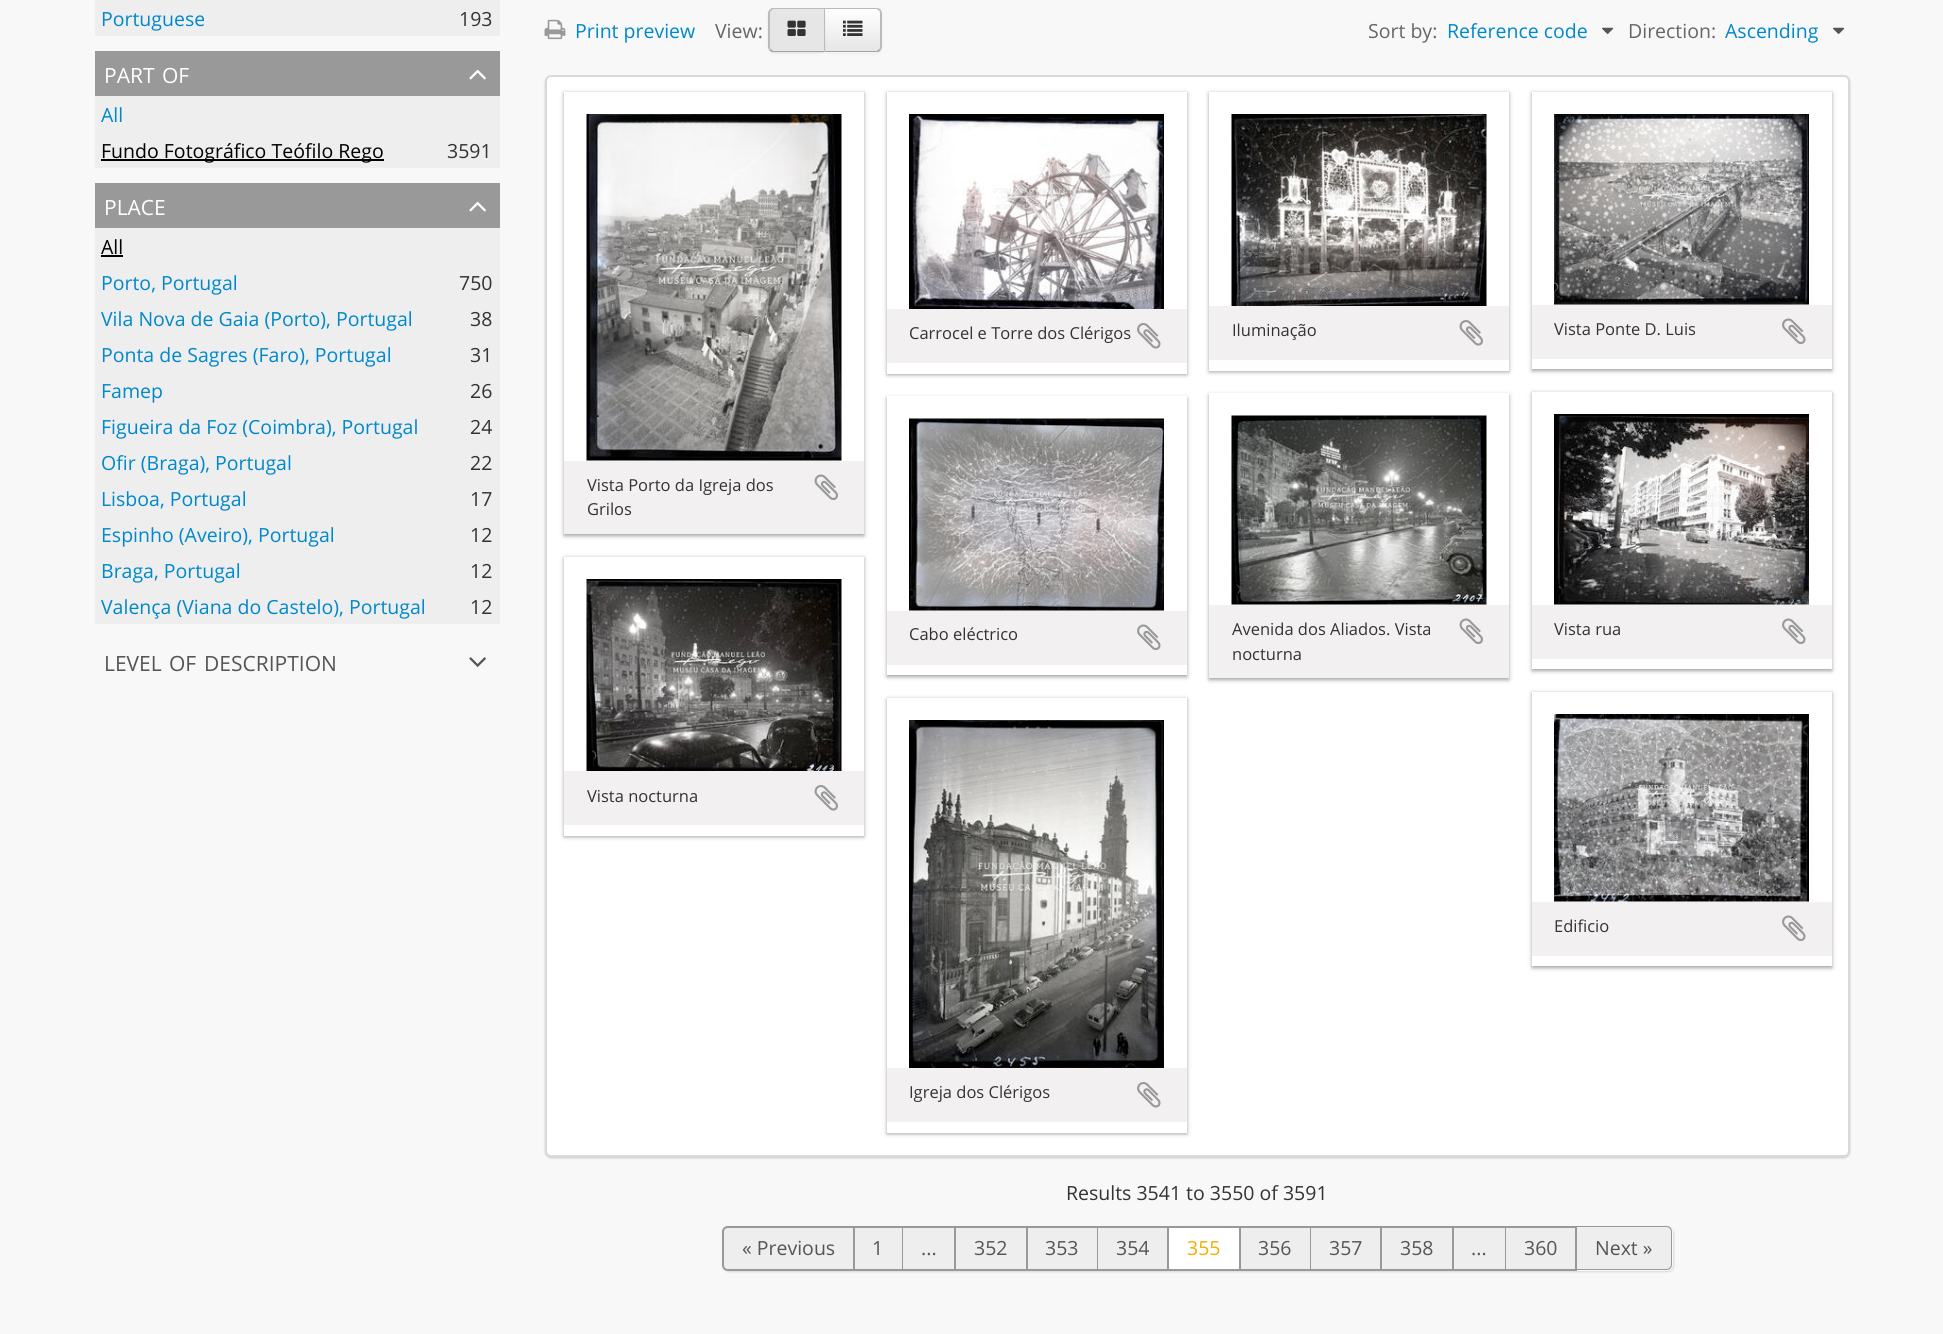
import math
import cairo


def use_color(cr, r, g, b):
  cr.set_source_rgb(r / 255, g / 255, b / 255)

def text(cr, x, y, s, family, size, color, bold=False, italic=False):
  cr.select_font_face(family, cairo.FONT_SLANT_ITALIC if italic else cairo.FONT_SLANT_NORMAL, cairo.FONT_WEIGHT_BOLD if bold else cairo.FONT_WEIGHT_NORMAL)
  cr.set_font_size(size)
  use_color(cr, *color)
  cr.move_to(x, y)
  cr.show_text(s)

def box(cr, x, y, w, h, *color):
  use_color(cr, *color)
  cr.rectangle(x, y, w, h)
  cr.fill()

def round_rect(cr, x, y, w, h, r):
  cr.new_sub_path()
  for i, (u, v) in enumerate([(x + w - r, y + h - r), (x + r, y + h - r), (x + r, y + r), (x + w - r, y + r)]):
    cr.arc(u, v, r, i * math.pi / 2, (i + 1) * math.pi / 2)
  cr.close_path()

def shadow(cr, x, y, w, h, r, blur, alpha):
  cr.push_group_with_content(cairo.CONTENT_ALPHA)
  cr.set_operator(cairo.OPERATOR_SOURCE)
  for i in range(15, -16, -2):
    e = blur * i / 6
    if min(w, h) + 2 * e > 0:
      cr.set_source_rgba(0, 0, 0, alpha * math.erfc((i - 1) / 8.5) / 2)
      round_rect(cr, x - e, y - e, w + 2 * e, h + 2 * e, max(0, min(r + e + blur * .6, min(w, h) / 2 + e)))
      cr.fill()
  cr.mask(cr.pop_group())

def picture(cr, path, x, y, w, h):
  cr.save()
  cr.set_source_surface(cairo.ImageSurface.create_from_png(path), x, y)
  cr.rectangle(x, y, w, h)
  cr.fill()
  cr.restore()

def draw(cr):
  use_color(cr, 248, 248, 248)
  cr.paint()
  box(cr, 95, 0, 405, 36, 238, 238, 238)
  box(cr, 95, 51, 405, 45, 153, 153, 153)
  picture(cr, "img_01.png", 469, 69, 17, 11)
  box(cr, 95, 96, 405, 72, 238, 238, 238)
  box(cr, 101, 159, 283, 2, 0, 0, 0)
  box(cr, 95, 183, 405, 45, 153, 153, 153)
  picture(cr, "img_01.png", 469, 201, 17, 11)
  box(cr, 95, 228, 405, 396, 238, 238, 238)
  box(cr, 101, 255, 22, 2, 0, 0, 0)
  picture(cr, "img_02.png", 469, 657, 17, 10)
  picture(cr, "img_03.png", 544, 19, 22, 21)
  use_color(cr, 0, 0, 0)
  shadow(cr, 824, 9, 58, 45, 6, 1.5, 0.05)
  use_color(cr, 245, 245, 245)
  cr.new_path()
  cr.move_to(824, 8)
  cr.line_to(876, 8)
  cr.curve_to(879.5, 8, 882, 10.5, 882, 14)
  cr.line_to(882, 47)
  cr.curve_to(882, 50.5, 879.5, 53, 876, 53)
  cr.line_to(824, 53)
  cr.close_path()
  cr.fill()
  cr.save()
  cr.new_path()
  cr.move_to(824, 8)
  cr.line_to(876, 8)
  cr.curve_to(879.5, 8, 882, 10.5, 882, 14)
  cr.line_to(882, 47)
  cr.curve_to(882, 50.5, 879.5, 53, 876, 53)
  cr.line_to(824, 53)
  cr.close_path()
  cr.clip()
  gradient = cairo.LinearGradient(853, 9, 853, 51)
  gradient.add_color_stop_rgba(0, 1, 1, 1, 1)
  gradient.add_color_stop_rgba(1, 0.902, 0.902, 0.902, 1)
  cr.set_source(gradient)
  cr.rectangle(825, 9, 57, 42)
  cr.fill()
  cr.restore()
  cr.set_source_rgba(1, 1, 1, 0.2)
  cr.new_path()
  cr.move_to(825, 10)
  cr.line_to(859, 10)
  cr.curve_to(881, 10, 880, 6, 880, 26)
  cr.line_to(880, 49)
  cr.curve_to(881, 48, 881, 47, 881, 46)
  cr.line_to(881, 14)
  cr.curve_to(881, 11, 879, 9, 876, 9)
  cr.line_to(825, 9)
  cr.close_path()
  cr.fill()
  use_color(cr, 187, 187, 187)
  cr.new_path()
  cr.move_to(824, 8)
  cr.line_to(825, 9)
  cr.line_to(877, 9)
  cr.line_to(879, 11)
  cr.line_to(880, 9)
  cr.curve_to(879, 8, 877, 8, 876, 8)
  cr.close_path()
  cr.fill()
  cr.new_path()
  cr.move_to(880, 9)
  cr.curve_to(881, 10, 882, 12, 882, 14)
  cr.line_to(882, 46)
  cr.curve_to(882, 48, 881, 50, 880, 51)
  cr.line_to(879, 49)
  cr.curve_to(880, 49, 880, 47, 880, 46)
  cr.line_to(880, 14)
  cr.curve_to(880, 13, 880, 11, 879, 11)
  cr.close_path()
  cr.fill()
  use_color(cr, 162, 162, 162)
  cr.new_path()
  cr.move_to(880, 51)
  cr.curve_to(879, 52, 877, 52, 876, 52)
  cr.line_to(824, 52)
  cr.line_to(825, 51)
  cr.line_to(877, 51)
  cr.line_to(879, 49)
  cr.close_path()
  cr.fill()
  use_color(cr, 0, 0, 0)
  shadow(cr, 768, 9, 57, 45, 6, 1.5, 0.05)
  use_color(cr, 230, 230, 230)
  cr.new_path()
  cr.move_to(774, 8)
  cr.line_to(825, 8)
  cr.line_to(825, 53)
  cr.line_to(774, 53)
  cr.curve_to(770.5, 53, 768, 50.5, 768, 47)
  cr.line_to(768, 14)
  cr.curve_to(768, 10.5, 770.5, 8, 774, 8)
  cr.close_path()
  cr.fill()
  use_color(cr, 187, 187, 187)
  cr.new_path()
  cr.move_to(774, 8)
  cr.curve_to(773, 8, 771, 8, 770, 9)
  cr.line_to(771, 11)
  cr.line_to(773, 9)
  cr.line_to(824, 9)
  cr.line_to(824, 8)
  cr.close_path()
  cr.move_to(825, 52)
  cr.line_to(825, 8)
  cr.line_to(824, 8)
  cr.line_to(824, 9)
  cr.line_to(824, 51)
  cr.close_path()
  cr.fill()
  use_color(cr, 162, 162, 162)
  cr.new_path()
  cr.move_to(824, 52)
  cr.line_to(774, 52)
  cr.curve_to(773, 52, 771, 52, 770, 51)
  cr.line_to(771, 49)
  cr.line_to(773, 51)
  cr.line_to(824, 51)
  cr.close_path()
  cr.fill()
  use_color(cr, 187, 187, 187)
  cr.new_path()
  cr.move_to(768, 14)
  cr.line_to(768, 46)
  cr.curve_to(768, 48, 769, 50, 770, 51)
  cr.line_to(771, 49)
  cr.curve_to(770, 49, 770, 47, 770, 46)
  cr.line_to(770, 14)
  cr.curve_to(770, 13, 770, 11, 771, 11)
  cr.line_to(770, 9)
  cr.curve_to(769, 10, 768, 12, 768, 14)
  cr.close_path()
  cr.fill()
  picture(cr, "img_04.png", 787, 20, 19, 16)
  picture(cr, "img_05.png", 843, 20, 20, 16)
  picture(cr, "img_06.png", 1602, 27, 12, 7)
  picture(cr, "img_06.png", 1833, 27, 12, 7)
  use_color(cr, 0, 0, 0)
  shadow(cr, 545, 77, 1305, 1081, 6, 1, 0.2)
  use_color(cr, 255, 255, 255)
  round_rect(cr, 546, 76, 1303, 1080, 5)
  cr.fill_preserve()
  use_color(cr, 217, 217, 217)
  cr.stroke()
  use_color(cr, 25, 25, 25)
  shadow(cr, 887, 93, 300, 282, 0, 2, 0.4)
  box(cr, 887, 92, 300, 282, 255, 255, 255)
  picture(cr, "img_07.png", 909, 114, 255, 195)
  box(cr, 887, 309, 300, 54, 242, 240, 240)
  picture(cr, "img_08.png", 1137, 323, 24, 26)
  use_color(cr, 25, 25, 25)
  shadow(cr, 1209, 93, 300, 279, 0, 2, 0.4)
  box(cr, 1209, 92, 300, 279, 255, 255, 255)
  picture(cr, "img_09.png", 1231, 114, 256, 192)
  box(cr, 1209, 306, 300, 54, 242, 240, 240)
  picture(cr, "img_10.png", 1459, 320, 24, 26)
  use_color(cr, 25, 25, 25)
  shadow(cr, 1532, 93, 300, 278, 0, 2, 0.4)
  box(cr, 1532, 92, 300, 277, 255, 255, 255)
  picture(cr, "img_11.png", 1554, 114, 255, 191)
  box(cr, 1532, 305, 300, 54, 242, 240, 240)
  picture(cr, "img_12.png", 1782, 318, 24, 26)
  cr.save()
  cr.set_fill_rule(cairo.FILL_RULE_EVEN_ODD)
  cr.new_path()
  cr.move_to(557, 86)
  cr.line_to(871, 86)
  cr.line_to(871, 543)
  cr.line_to(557, 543)
  cr.close_path()
  cr.move_to(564, 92)
  cr.line_to(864, 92)
  cr.line_to(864, 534)
  cr.line_to(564, 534)
  cr.close_path()
  cr.clip()
  use_color(cr, 25, 25, 25)
  shadow(cr, 564, 93, 300, 443, 0, 2, 0.4)
  cr.restore()
  picture(cr, "img_13.png", 586, 114, 256, 347)
  box(cr, 564, 461, 300, 73, 242, 240, 240)
  picture(cr, "img_14.png", 814, 474, 24, 27)
  use_color(cr, 25, 25, 25)
  shadow(cr, 887, 398, 300, 279, 0, 2, 0.4)
  box(cr, 887, 396, 300, 279, 255, 255, 255)
  picture(cr, "img_15.png", 909, 418, 255, 193)
  box(cr, 887, 611, 300, 54, 242, 240, 240)
  picture(cr, "img_12.png", 1137, 624, 24, 26)
  cr.save()
  cr.set_fill_rule(cairo.FILL_RULE_EVEN_ODD)
  cr.new_path()
  cr.move_to(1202, 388)
  cr.line_to(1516, 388)
  cr.line_to(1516, 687)
  cr.line_to(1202, 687)
  cr.close_path()
  cr.move_to(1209, 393)
  cr.line_to(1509, 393)
  cr.line_to(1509, 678)
  cr.line_to(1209, 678)
  cr.close_path()
  cr.clip()
  use_color(cr, 25, 25, 25)
  shadow(cr, 1209, 395, 300, 285, 0, 2, 0.4)
  cr.restore()
  picture(cr, "img_16.png", 1231, 415, 256, 190)
  box(cr, 1209, 605, 300, 73, 242, 240, 240)
  picture(cr, "img_14.png", 1459, 618, 24, 27)
  use_color(cr, 25, 25, 25)
  shadow(cr, 1532, 393, 300, 278, 0, 2, 0.4)
  box(cr, 1532, 392, 300, 277, 255, 255, 255)
  picture(cr, "img_17.png", 1554, 414, 255, 191)
  box(cr, 1532, 605, 300, 54, 242, 240, 240)
  picture(cr, "img_12.png", 1782, 618, 24, 26)
  use_color(cr, 25, 25, 25)
  shadow(cr, 564, 558, 300, 279, 0, 2, 0.4)
  box(cr, 564, 557, 300, 279, 255, 255, 255)
  picture(cr, "img_18.png", 586, 579, 256, 192)
  box(cr, 564, 771, 300, 54, 242, 240, 240)
  picture(cr, "img_10.png", 814, 785, 24, 26)
  use_color(cr, 25, 25, 25)
  shadow(cr, 1532, 693, 300, 275, 0, 2, 0.4)
  box(cr, 1532, 692, 300, 274, 255, 255, 255)
  picture(cr, "img_19.png", 1554, 714, 255, 188)
  box(cr, 1532, 902, 300, 54, 242, 240, 240)
  picture(cr, "img_12.png", 1782, 915, 24, 26)
  use_color(cr, 25, 25, 25)
  shadow(cr, 887, 699, 300, 435, 0, 2, 0.4)
  box(cr, 887, 698, 300, 435, 255, 255, 255)
  picture(cr, "img_20.png", 909, 720, 255, 348)
  box(cr, 887, 1068, 300, 54, 242, 240, 240)
  picture(cr, "img_08.png", 1137, 1082, 24, 26)
  cr.save()
  cr.set_fill_rule(cairo.FILL_RULE_EVEN_ODD)
  cr.new_path()
  cr.move_to(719, 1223)
  cr.line_to(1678, 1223)
  cr.line_to(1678, 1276)
  cr.line_to(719, 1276)
  cr.close_path()
  cr.move_to(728, 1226)
  cr.line_to(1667, 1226)
  cr.curve_to(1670.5, 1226, 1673, 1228.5, 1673, 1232)
  cr.line_to(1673, 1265)
  cr.curve_to(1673, 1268.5, 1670.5, 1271, 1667, 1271)
  cr.line_to(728, 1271)
  cr.curve_to(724.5, 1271, 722, 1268.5, 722, 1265)
  cr.line_to(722, 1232)
  cr.curve_to(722, 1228.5, 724.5, 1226, 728, 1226)
  cr.close_path()
  cr.clip()
  use_color(cr, 25, 25, 25)
  shadow(cr, 723, 1227, 951, 45, 6, 1, 0.15)
  cr.restore()
  use_color(cr, 238, 238, 238)
  cr.new_path()
  cr.move_to(728, 1227)
  cr.line_to(854, 1227)
  cr.line_to(854, 1270)
  cr.line_to(728, 1270)
  cr.curve_to(725, 1270, 723, 1268, 723, 1265)
  cr.line_to(723, 1232)
  cr.curve_to(723, 1229, 725, 1227, 728, 1227)
  cr.close_path()
  cr.fill_preserve()
  use_color(cr, 153, 153, 153)
  cr.stroke()
  box(cr, 855, 1228, 47, 41, 238, 238, 238)
  box(cr, 855, 1226, 722, 2, 153, 153, 153)
  box(cr, 902, 1226, 1, 45, 153, 153, 153)
  box(cr, 855, 1269, 48, 2, 153, 153, 153)
  box(cr, 903, 1228, 51, 41, 238, 238, 238)
  box(cr, 954, 1226, 2, 45, 153, 153, 153)
  box(cr, 903, 1269, 53, 2, 153, 153, 153)
  box(cr, 956, 1228, 70, 41, 238, 238, 238)
  box(cr, 1026, 1226, 2, 45, 153, 153, 153)
  box(cr, 956, 1269, 72, 2, 153, 153, 153)
  box(cr, 1028, 1228, 69, 41, 238, 238, 238)
  box(cr, 1097, 1226, 1, 45, 153, 153, 153)
  box(cr, 1028, 1269, 70, 2, 153, 153, 153)
  box(cr, 1098, 1228, 69, 41, 238, 238, 238)
  box(cr, 1167, 1226, 2, 45, 153, 153, 153)
  box(cr, 1098, 1269, 71, 2, 153, 153, 153)
  box(cr, 1169, 1228, 70, 41, 255, 255, 255)
  box(cr, 1239, 1226, 2, 45, 153, 153, 153)
  box(cr, 1169, 1269, 72, 2, 153, 153, 153)
  box(cr, 1241, 1228, 69, 41, 238, 238, 238)
  box(cr, 1310, 1226, 1, 45, 153, 153, 153)
  box(cr, 1241, 1269, 70, 2, 153, 153, 153)
  box(cr, 1311, 1228, 69, 41, 238, 238, 238)
  box(cr, 1380, 1226, 2, 45, 153, 153, 153)
  box(cr, 1311, 1269, 71, 2, 153, 153, 153)
  box(cr, 1382, 1228, 70, 41, 238, 238, 238)
  box(cr, 1452, 1226, 2, 45, 153, 153, 153)
  box(cr, 1382, 1269, 72, 2, 153, 153, 153)
  box(cr, 1454, 1228, 51, 41, 238, 238, 238)
  box(cr, 1505, 1226, 1, 45, 153, 153, 153)
  box(cr, 1454, 1269, 52, 2, 153, 153, 153)
  box(cr, 1506, 1228, 69, 41, 238, 238, 238)
  box(cr, 1575, 1226, 2, 45, 153, 153, 153)
  box(cr, 1506, 1269, 71, 2, 153, 153, 153)
  use_color(cr, 238, 238, 238)
  cr.new_path()
  cr.move_to(1577, 1227)
  cr.line_to(1666, 1227)
  cr.curve_to(1669, 1227, 1671, 1229, 1671, 1232)
  cr.line_to(1671, 1264)
  cr.curve_to(1671, 1267, 1669, 1269, 1666, 1269)
  cr.line_to(1577, 1269)
  cr.close_path()
  cr.fill()
  use_color(cr, 153, 153, 153)
  cr.set_fill_rule(cairo.FILL_RULE_EVEN_ODD)
  cr.new_path()
  cr.move_to(1576, 1226)
  cr.line_to(1666, 1226)
  cr.curve_to(1670, 1226, 1672, 1228, 1672, 1232)
  cr.line_to(1672, 1264)
  cr.curve_to(1672, 1268, 1670, 1270, 1666, 1270)
  cr.line_to(1576, 1270)
  cr.close_path()
  cr.move_to(1576, 1227)
  cr.line_to(1666, 1227)
  cr.curve_to(1669, 1227, 1671, 1229, 1671, 1232)
  cr.line_to(1671, 1264)
  cr.curve_to(1671, 1267, 1669, 1269, 1666, 1269)
  cr.line_to(1576, 1269)
  cr.close_path()
  cr.fill()
  text(cr, 101, 26, "Portuguese", "Open Sans", 19.5, (0, 136, 204))
  text(cr, 459, 26, "193", "Open Sans", 19.5, (51, 51, 51))
  text(cr, 104, 83, "PART", "Open Sans", 21, (255, 255, 255))
  text(cr, 162, 83, "OF", "Open Sans", 21, (255, 255, 255))
  text(cr, 101, 122, "All", "Open Sans", 19.5, (0, 136, 204))
  text(cr, 101, 158, "Fundo Fotográfico Teófilo Rego", "Open Sans", 19.5, (0, 0, 0))
  text(cr, 447, 158, "3591", "Open Sans", 19.5, (51, 51, 51))
  text(cr, 104, 215, "PLACE", "Open Sans", 21, (255, 255, 255))
  text(cr, 101, 254, "All", "Open Sans", 19.5, (0, 0, 0))
  text(cr, 101, 290, "Porto, Portugal", "Open Sans", 19.5, (0, 136, 204))
  text(cr, 459, 290, "750", "Open Sans", 19.5, (51, 51, 51))
  text(cr, 101, 326, "Vila Nova de Gaia (Porto), Portugal", "Open Sans", 19.5, (0, 136, 204))
  text(cr, 470, 326, "38", "Open Sans", 19.5, (51, 51, 51))
  text(cr, 101, 362, "Ponta de Sagres (Faro), Portugal", "Open Sans", 19.5, (0, 136, 204))
  text(cr, 470, 362, "31", "Open Sans", 19.5, (51, 51, 51))
  text(cr, 101, 398, "Famep", "Open Sans", 19.5, (0, 136, 204))
  text(cr, 470, 398, "26", "Open Sans", 19.5, (51, 51, 51))
  text(cr, 101, 434, "Figueira da Foz (Coimbra), Portugal", "Open Sans", 19.5, (0, 136, 204))
  text(cr, 470, 434, "24", "Open Sans", 19.5, (51, 51, 51))
  text(cr, 101, 470, "Ofir (Braga), Portugal", "Open Sans", 19.5, (0, 136, 204))
  text(cr, 470, 470, "22", "Open Sans", 19.5, (51, 51, 51))
  text(cr, 101, 506, "Lisboa, Portugal", "Open Sans", 19.5, (0, 136, 204))
  text(cr, 470, 506, "17", "Open Sans", 19.5, (51, 51, 51))
  text(cr, 101, 542, "Espinho (Aveiro), Portugal", "Open Sans", 19.5, (0, 136, 204))
  text(cr, 470, 542, "12", "Open Sans", 19.5, (51, 51, 51))
  text(cr, 101, 578, "Braga, Portugal", "Open Sans", 19.5, (0, 136, 204))
  text(cr, 470, 578, "12", "Open Sans", 19.5, (51, 51, 51))
  text(cr, 101, 614, "Valença (Viana do Castelo), Portugal", "Open Sans", 19.5, (0, 136, 204))
  text(cr, 470, 614, "12", "Open Sans", 19.5, (51, 51, 51))
  text(cr, 104, 671, "LEVEL", "Open Sans", 21, (85, 85, 85))
  text(cr, 169, 671, "OF", "Open Sans", 21, (85, 85, 85))
  text(cr, 204, 671, "DESCRIPTION", "Open Sans", 21, (85, 85, 85))
  text(cr, 575, 38, "Print preview", "Open Sans", 19.5, (0, 136, 204))
  text(cr, 715, 38, "View:", "Open Sans", 19.5, (102, 102, 102))
  text(cr, 1368, 38, "Sort by:", "Open Sans", 19.5, (102, 102, 102))
  text(cr, 1447, 38, "Reference code", "Open Sans", 19.5, (0, 136, 204))
  text(cr, 1628, 38, "Direction:", "Open Sans", 19.5, (102, 102, 102))
  text(cr, 1725, 38, "Ascending", "Open Sans", 19.5, (0, 136, 204))
  text(cr, 909, 339, "Carrocel e Torre dos Clérigos", "Open Sans", 16.5, (51, 51, 51))
  text(cr, 1232, 336, "Iluminação", "Open Sans", 16.5, (51, 51, 51))
  text(cr, 1554, 335, "Vista Ponte D. Luis", "Open Sans", 16.5, (51, 51, 51))
  text(cr, 587, 491, "Vista Porto da Igreja dos", "Open Sans", 16.5, (51, 51, 51))
  text(cr, 587, 515, "Grilos", "Open Sans", 16.5, (51, 51, 51))
  text(cr, 909, 640, "Cabo eléctrico", "Open Sans", 16.5, (51, 51, 51))
  text(cr, 1232, 635, "Avenida dos Aliados. Vista", "Open Sans", 16.5, (51, 51, 51))
  text(cr, 1232, 660, "nocturna", "Open Sans", 16.5, (51, 51, 51))
  text(cr, 1554, 635, "Vista rua", "Open Sans", 16.5, (51, 51, 51))
  text(cr, 587, 802, "Vista nocturna", "Open Sans", 16.5, (51, 51, 51))
  text(cr, 1554, 932, "Edificio", "Open Sans", 16.5, (51, 51, 51))
  text(cr, 909, 1098, "Igreja dos Clérigos", "Open Sans", 16.5, (51, 51, 51))
  text(cr, 1066, 1200, "Results 3541 to 3550 of 3591", "Open Sans", 19.5, (51, 51, 51))
  text(cr, 742, 1255, "« Previous", "Open Sans", 19.5, (85, 85, 85))
  text(cr, 872, 1255, "1", "Open Sans", 19.5, (85, 85, 85))
  text(cr, 921, 1255, "...", "Open Sans", 19.5, (85, 85, 85))
  text(cr, 974, 1255, "352", "Open Sans", 19.5, (85, 85, 85))
  text(cr, 1045, 1255, "353", "Open Sans", 19.5, (85, 85, 85))
  text(cr, 1116, 1255, "354", "Open Sans", 19.5, (85, 85, 85))
  text(cr, 1187, 1255, "355", "Open Sans", 19.5, (246, 172, 0))
  text(cr, 1258, 1255, "356", "Open Sans", 19.5, (85, 85, 85))
  text(cr, 1329, 1255, "357", "Open Sans", 19.5, (85, 85, 85))
  text(cr, 1400, 1255, "358", "Open Sans", 19.5, (85, 85, 85))
  text(cr, 1471, 1255, "...", "Open Sans", 19.5, (85, 85, 85))
  text(cr, 1524, 1255, "360", "Open Sans", 19.5, (85, 85, 85))
  text(cr, 1595, 1255, "Next »", "Open Sans", 19.5, (85, 85, 85))


surface = cairo.ImageSurface(cairo.FORMAT_RGB24, 1943, 1334)
cr = cairo.Context(surface)
options = cairo.FontOptions()
options.set_hint_metrics(cairo.HINT_METRICS_OFF)
options.set_hint_style(cairo.HINT_STYLE_NONE)
cr.set_font_options(options)
cr.set_miter_limit(4)
draw(cr)
surface.write_to_png("out.png")
